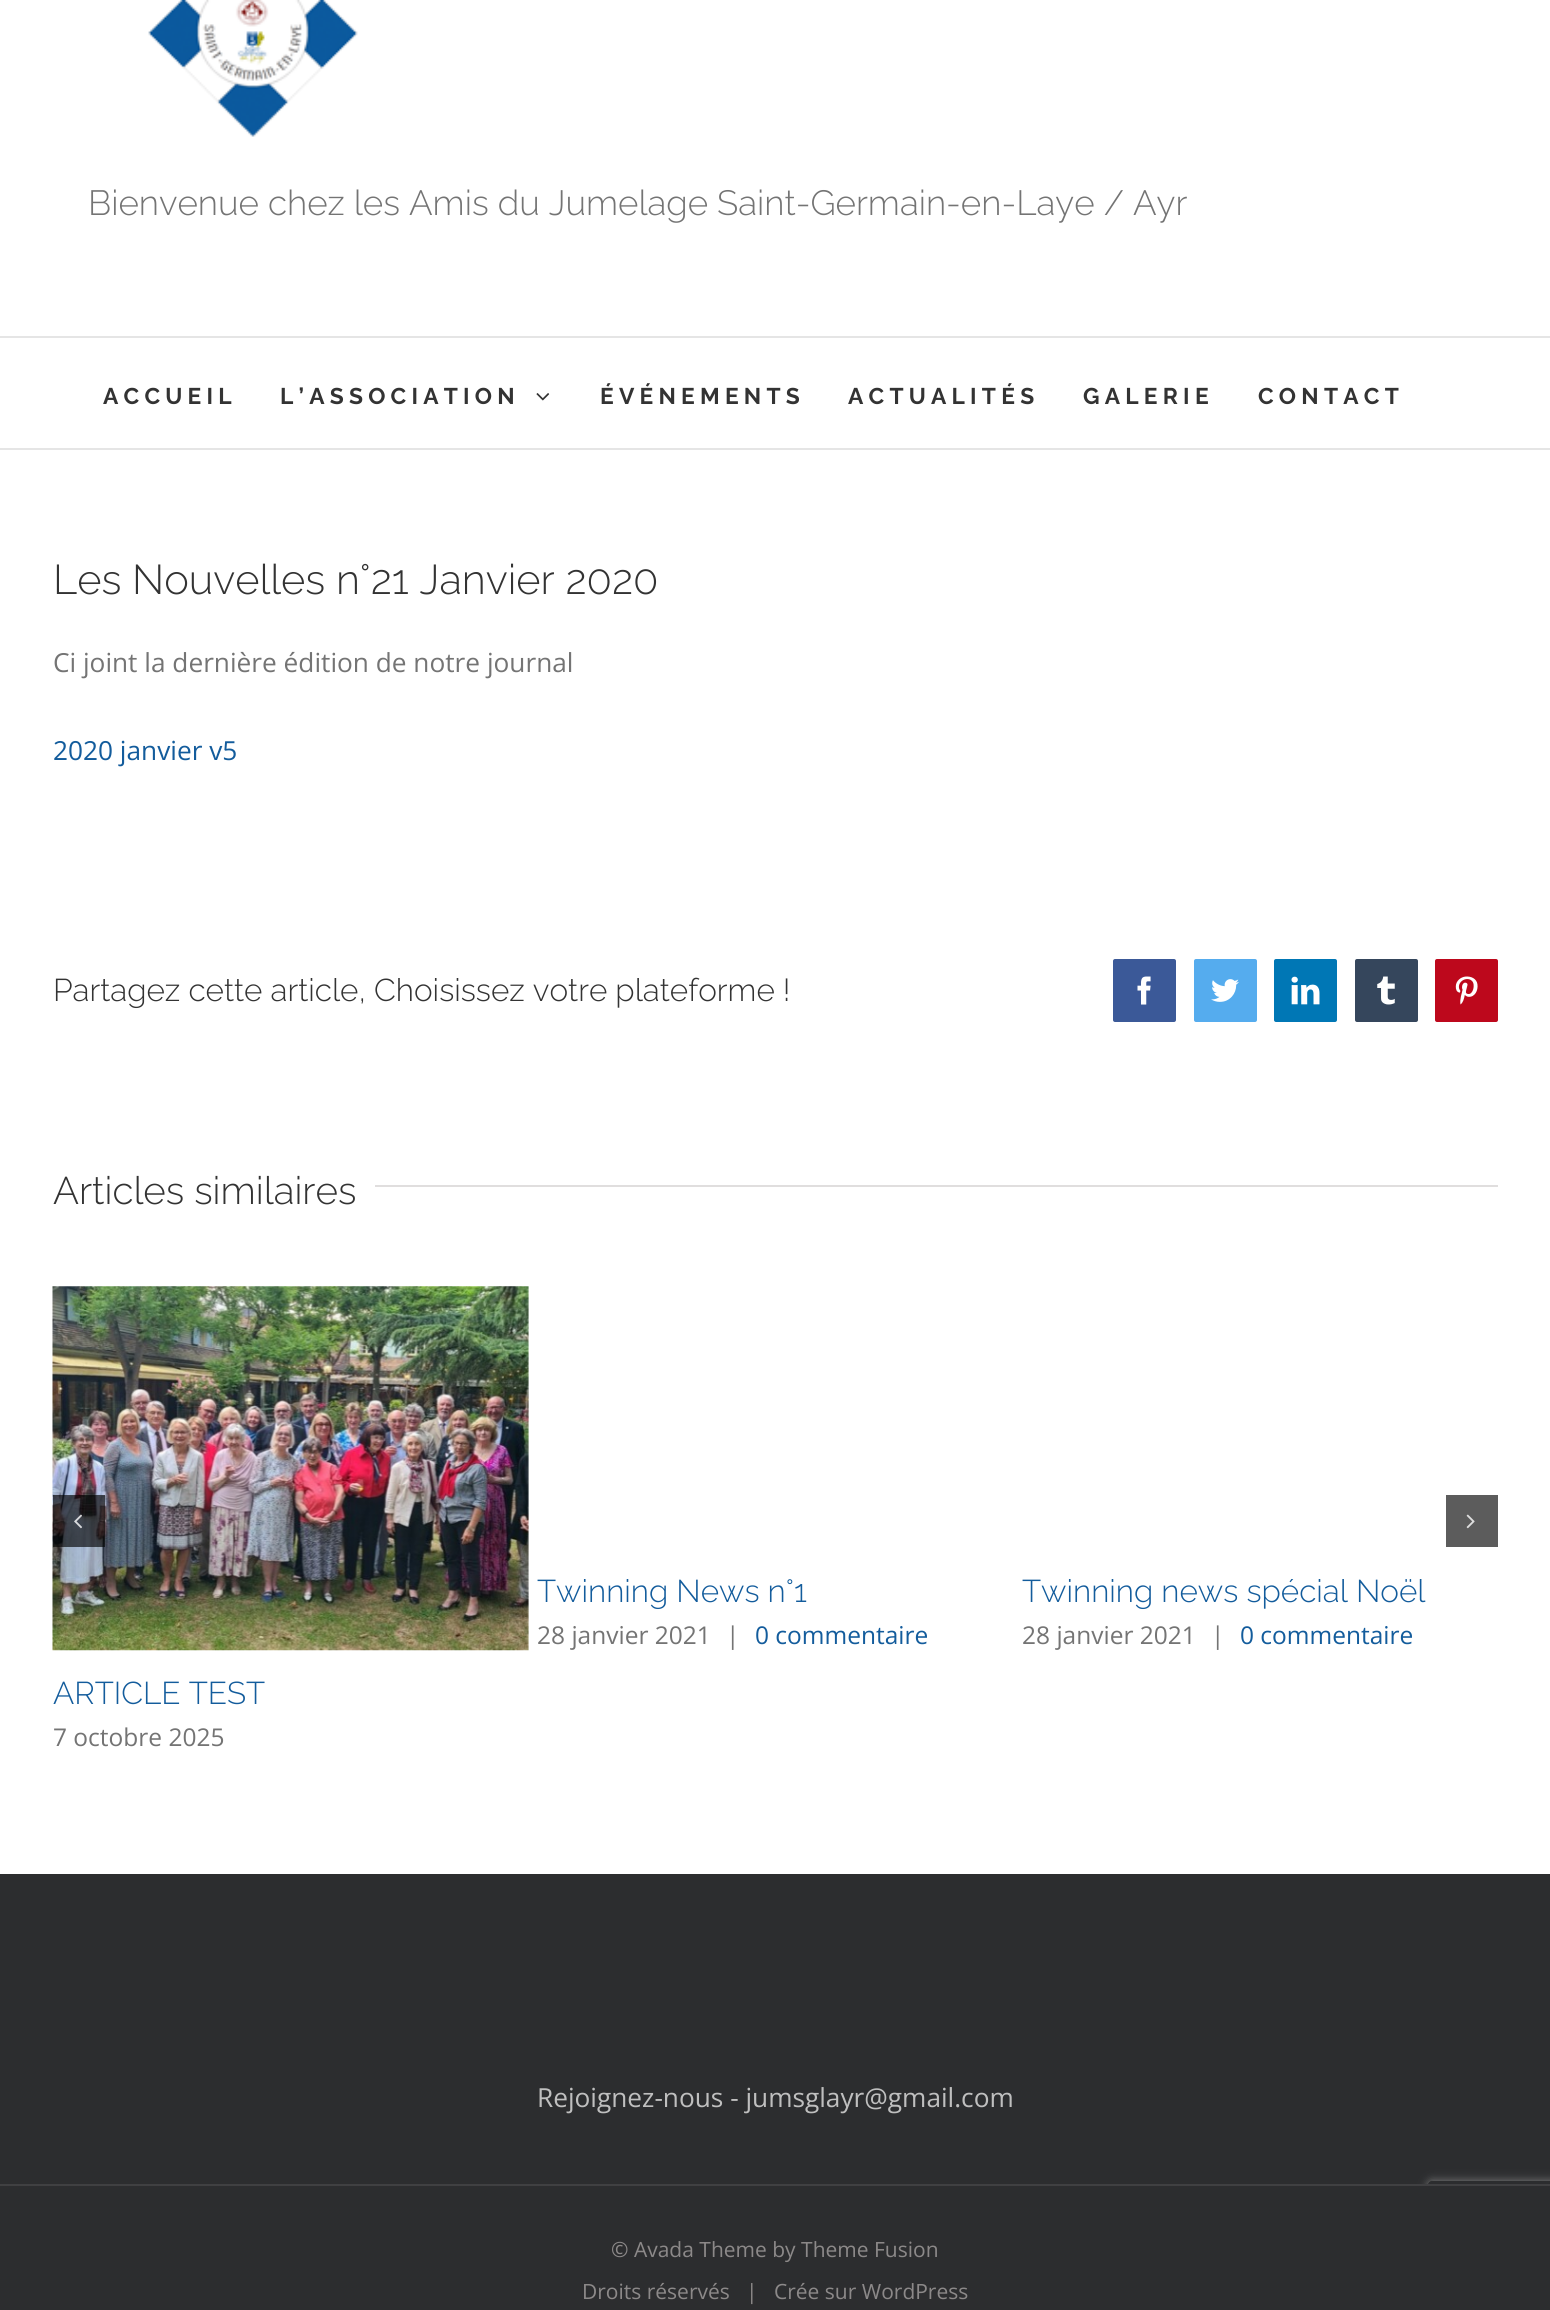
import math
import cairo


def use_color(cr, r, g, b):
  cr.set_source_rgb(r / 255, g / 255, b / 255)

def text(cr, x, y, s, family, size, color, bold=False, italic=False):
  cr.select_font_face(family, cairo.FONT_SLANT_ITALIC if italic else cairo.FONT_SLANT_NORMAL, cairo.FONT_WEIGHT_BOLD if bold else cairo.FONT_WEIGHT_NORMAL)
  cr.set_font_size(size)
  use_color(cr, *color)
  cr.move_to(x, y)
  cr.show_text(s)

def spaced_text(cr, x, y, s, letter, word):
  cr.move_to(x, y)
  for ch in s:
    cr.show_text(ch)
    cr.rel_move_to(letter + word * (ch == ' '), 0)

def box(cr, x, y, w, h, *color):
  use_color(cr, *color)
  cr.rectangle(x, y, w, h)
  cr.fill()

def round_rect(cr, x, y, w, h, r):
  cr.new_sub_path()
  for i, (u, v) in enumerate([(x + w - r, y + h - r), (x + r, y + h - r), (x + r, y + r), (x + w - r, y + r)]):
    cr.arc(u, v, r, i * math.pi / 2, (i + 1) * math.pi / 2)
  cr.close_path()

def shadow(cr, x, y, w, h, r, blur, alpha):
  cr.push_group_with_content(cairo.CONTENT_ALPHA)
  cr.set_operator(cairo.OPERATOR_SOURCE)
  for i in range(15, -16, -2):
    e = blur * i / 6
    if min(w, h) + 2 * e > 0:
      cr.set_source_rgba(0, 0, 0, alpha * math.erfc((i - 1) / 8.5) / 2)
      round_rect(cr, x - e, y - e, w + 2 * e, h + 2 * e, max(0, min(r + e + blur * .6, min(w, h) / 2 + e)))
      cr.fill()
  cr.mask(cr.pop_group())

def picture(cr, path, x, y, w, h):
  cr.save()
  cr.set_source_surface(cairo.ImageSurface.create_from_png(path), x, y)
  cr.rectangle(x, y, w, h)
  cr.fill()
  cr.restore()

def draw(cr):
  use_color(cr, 255, 255, 255)
  cr.paint()
  box(cr, 0, 336, 1550, 2, 229, 229, 229)
  picture(cr, "img_01.png", 148, 0, 210, 137)
  box(cr, 0, 448, 1550, 2, 229, 229, 229)
  picture(cr, "img_02.png", 536, 393, 14, 8)
  use_color(cr, 59, 89, 152)
  round_rect(cr, 1114, 960, 61, 61, 1)
  cr.fill_preserve()
  cr.stroke()
  picture(cr, "img_03.png", 1137, 976, 14, 29)
  use_color(cr, 85, 172, 238)
  round_rect(cr, 1195, 960, 61, 61, 1)
  cr.fill_preserve()
  cr.stroke()
  picture(cr, "img_04.png", 1211, 979, 28, 23)
  use_color(cr, 0, 119, 181)
  round_rect(cr, 1275, 960, 61, 61, 1)
  cr.fill_preserve()
  cr.stroke()
  picture(cr, "img_05.png", 1291, 976, 29, 29)
  use_color(cr, 53, 70, 92)
  round_rect(cr, 1356, 960, 61, 61, 1)
  cr.fill_preserve()
  cr.stroke()
  picture(cr, "img_06.png", 1377, 976, 18, 29)
  use_color(cr, 189, 8, 28)
  round_rect(cr, 1436, 960, 61, 61, 1)
  cr.fill_preserve()
  cr.stroke()
  picture(cr, "img_07.png", 1455, 976, 23, 29)
  box(cr, 375, 1185, 1123, 2, 224, 222, 222)
  picture(cr, "img_10.png", 52, 1286, 477, 365)
  cr.set_source_rgba(0, 0, 0, 0.64)
  cr.rectangle(53, 1495, 52, 52)
  cr.fill()
  picture(cr, "img_08.png", 74, 1514, 8, 15)
  box(cr, 1446, 1495, 52, 52, 92, 92, 92)
  picture(cr, "img_09.png", 1466, 1514, 9, 15)
  box(cr, 0, 1874, 1550, 310, 44, 45, 47)
  cr.save()
  cr.set_fill_rule(cairo.FILL_RULE_EVEN_ODD)
  cr.new_path()
  cr.move_to(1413, 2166)
  cr.line_to(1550, 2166)
  cr.line_to(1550, 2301)
  cr.line_to(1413, 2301)
  cr.close_path()
  cr.move_to(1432, 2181)
  cr.line_to(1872, 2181)
  cr.curve_to(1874, 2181, 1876, 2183, 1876, 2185)
  cr.line_to(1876, 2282)
  cr.curve_to(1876, 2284, 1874, 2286, 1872, 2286)
  cr.line_to(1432, 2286)
  cr.curve_to(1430, 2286, 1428, 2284, 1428, 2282)
  cr.line_to(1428, 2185)
  cr.curve_to(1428, 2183, 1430, 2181, 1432, 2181)
  cr.close_path()
  cr.clip()
  use_color(cr, 128, 128, 128)
  shadow(cr, 1428, 2181, 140, 105, 4, 4.5, 1)
  cr.restore()
  box(cr, 0, 2186, 1550, 124, 44, 45, 47)
  box(cr, 0, 2184, 1550, 2, 64, 64, 66)
  text(cr, 88, 215, "Bienvenue chez les Amis du Jumelage Saint-Germain-en-Laye / Ayr", "Raleway Light", 35, (116, 116, 116))
  cr.select_font_face("Raleway", cairo.FONT_SLANT_NORMAL, cairo.FONT_WEIGHT_BOLD)
  cr.set_font_size(22.75)
  use_color(cr, 51, 51, 51)
  spaced_text(cr, 103, 404, "ACCUEIL", 5.25, 0)
  spaced_text(cr, 280, 404, "L’ASSOCIATION", 5.25, 0)
  spaced_text(cr, 600, 404, "ÉVÉNEMENTS", 5.25, 0)
  spaced_text(cr, 848, 404, "ACTUALITÉS", 5.25, 0)
  spaced_text(cr, 1083, 404, "GALERIE", 5.25, 0)
  spaced_text(cr, 1258, 404, "CONTACT", 5.25, 0)
  text(cr, 53, 594, "Les Nouvelles n°21 Janvier 2020", "Raleway Light", 41.6, (51, 51, 51))
  text(cr, 53, 672, "Ci joint la dernière édition de notre journal", "Open Sans", 26.25, (116, 116, 116))
  text(cr, 53, 760, "2020 janvier v5", "Open Sans", 26.25, (19, 92, 156))
  text(cr, 53, 1001, "Partagez cette article, Choisissez votre plateforme !", "Raleway Light", 31.5, (51, 51, 51))
  text(cr, 53, 1204, "Articles similaires", "Raleway Light", 38.5, (51, 51, 51))
  text(cr, 537, 1602, "Twinning News n°1", "Raleway Light", 31.5, (19, 92, 156))
  text(cr, 537, 1644, "28 janvier 2021", "Open Sans", 24.5, (116, 116, 116))
  text(cr, 726, 1644, "|", "Open Sans", 24.5, (116, 116, 116))
  text(cr, 755, 1644, "0 commentaire", "Open Sans", 24.5, (19, 92, 156))
  text(cr, 1022, 1602, "Twinning news spécial Noël", "Raleway Light", 31.5, (19, 92, 156))
  text(cr, 1022, 1644, "28 janvier 2021", "Open Sans", 24.5, (116, 116, 116))
  text(cr, 1211, 1644, "|", "Open Sans", 24.5, (116, 116, 116))
  text(cr, 1240, 1644, "0 commentaire", "Open Sans", 24.5, (19, 92, 156))
  text(cr, 53, 1704, "ARTICLE TEST", "Raleway Light", 31.5, (19, 92, 156))
  text(cr, 53, 1746, "7 octobre 2025", "Open Sans", 24.5, (116, 116, 116))
  text(cr, 537, 2107, "Rejoignez-nous - jumsglayr@gmail.com", "Open Sans", 26.25, (191, 191, 191))
  text(cr, 611, 2257, "© Avada Theme by Theme Fusion", "Open Sans", 21, (140, 137, 137))
  text(cr, 582, 2299, "Droits réservés   |   Crée sur WordPress", "Open Sans", 21, (140, 137, 137))


surface = cairo.ImageSurface(cairo.FORMAT_RGB24, 1550, 2310)
cr = cairo.Context(surface)
options = cairo.FontOptions()
options.set_hint_metrics(cairo.HINT_METRICS_OFF)
options.set_hint_style(cairo.HINT_STYLE_NONE)
cr.set_font_options(options)
cr.set_miter_limit(4)
draw(cr)
surface.write_to_png("out.png")
